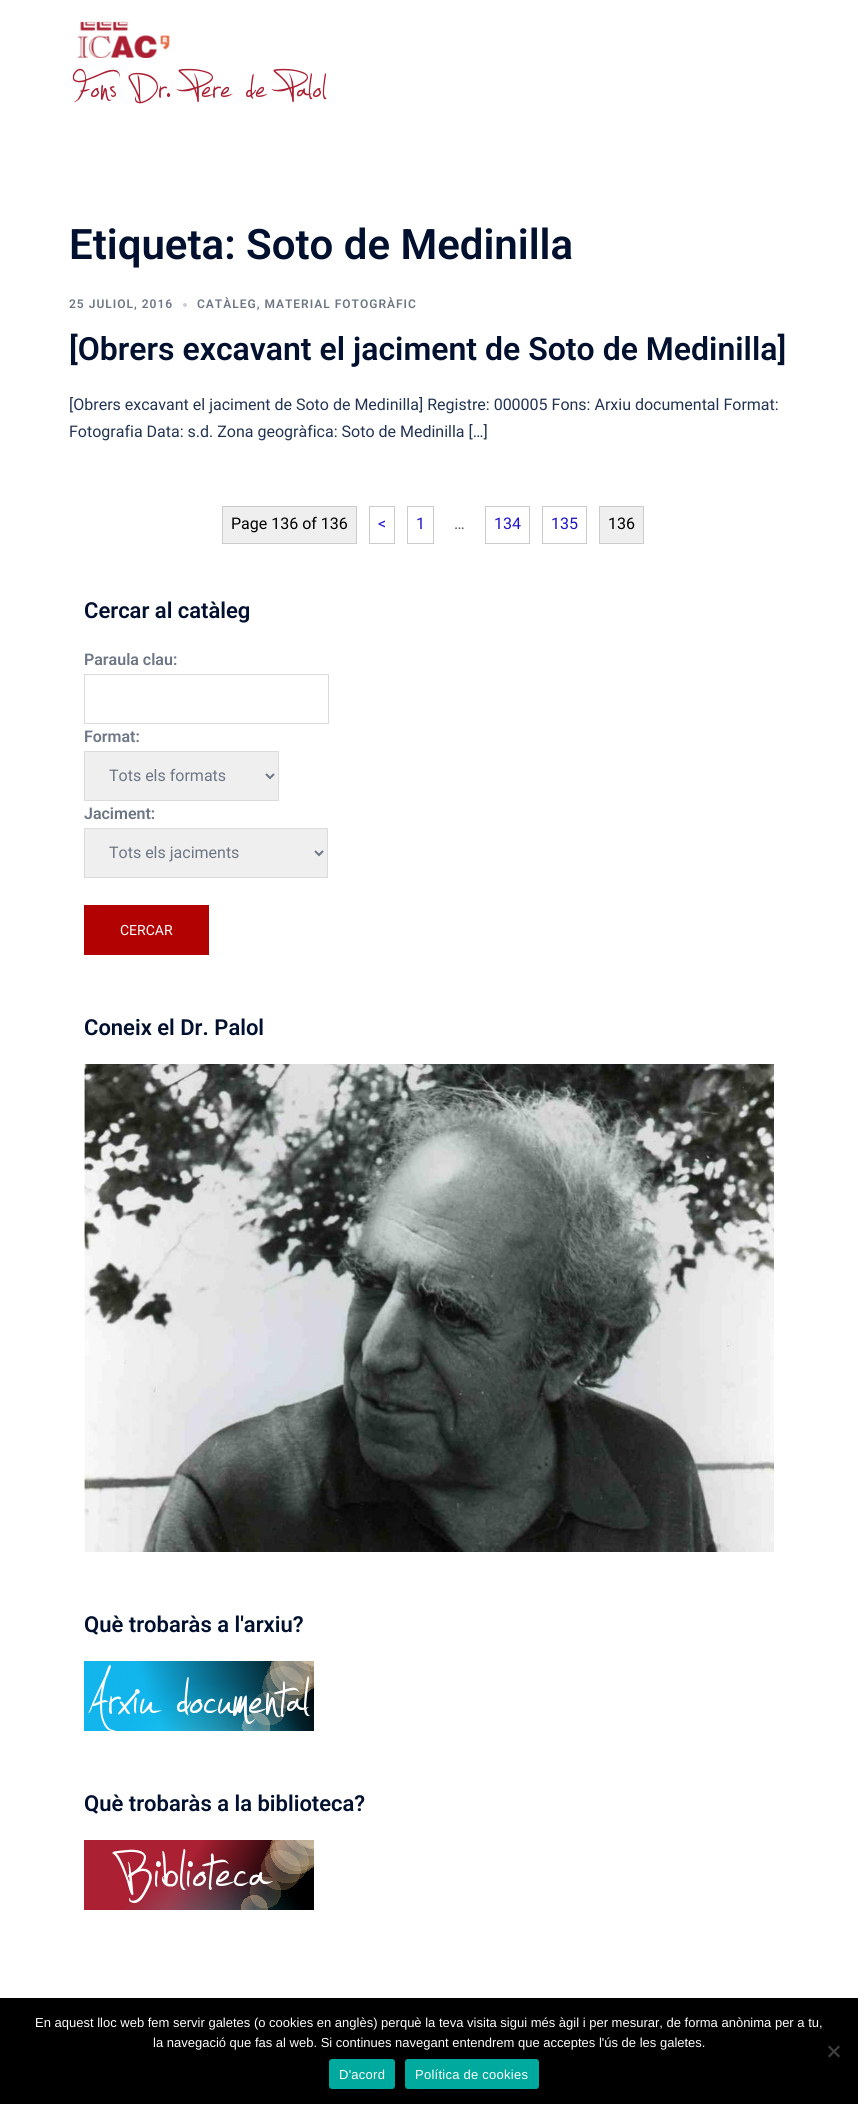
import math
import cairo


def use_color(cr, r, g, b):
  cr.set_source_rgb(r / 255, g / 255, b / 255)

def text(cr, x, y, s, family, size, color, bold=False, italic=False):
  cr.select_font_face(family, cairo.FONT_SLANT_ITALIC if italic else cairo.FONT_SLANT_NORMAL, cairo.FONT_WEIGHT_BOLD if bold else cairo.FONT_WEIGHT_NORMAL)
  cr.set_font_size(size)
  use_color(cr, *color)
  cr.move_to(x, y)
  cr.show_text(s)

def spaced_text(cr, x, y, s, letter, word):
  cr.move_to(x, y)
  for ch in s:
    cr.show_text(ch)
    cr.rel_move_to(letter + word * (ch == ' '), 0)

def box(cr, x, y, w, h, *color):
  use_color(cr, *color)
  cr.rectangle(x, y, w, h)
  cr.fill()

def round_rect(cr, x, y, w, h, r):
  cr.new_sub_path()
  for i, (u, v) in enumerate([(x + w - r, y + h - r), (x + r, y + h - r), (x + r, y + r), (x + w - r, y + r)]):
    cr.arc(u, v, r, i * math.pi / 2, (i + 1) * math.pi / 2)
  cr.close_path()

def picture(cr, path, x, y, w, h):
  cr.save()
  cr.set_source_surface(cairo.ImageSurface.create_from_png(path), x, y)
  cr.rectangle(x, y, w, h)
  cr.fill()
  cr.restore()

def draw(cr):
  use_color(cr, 255, 255, 255)
  cr.paint()
  picture(cr, "img_01.png", 72, 21, 255, 83)
  use_color(cr, 204, 207, 213)
  cr.arc(185, 305, 2, 0, 2 * math.pi)
  cr.fill()
  use_color(cr, 239, 239, 239)
  cr.rectangle(222.5, 506.5, 134, 37)
  cr.fill_preserve()
  use_color(cr, 204, 204, 204)
  cr.set_line_width(1)
  cr.stroke()
  cr.rectangle(369.5, 506.5, 25, 37)
  cr.stroke()
  cr.rectangle(407.5, 506.5, 26, 37)
  cr.stroke()
  cr.rectangle(485.5, 506.5, 44, 37)
  cr.stroke()
  cr.rectangle(542.5, 506.5, 44, 37)
  cr.stroke()
  use_color(cr, 239, 239, 239)
  cr.rectangle(599.5, 506.5, 44, 37)
  cr.fill_preserve()
  use_color(cr, 204, 204, 204)
  cr.stroke()
  cr.rectangle(84.5, 674.5, 244, 49)
  use_color(cr, 219, 219, 219)
  cr.stroke()
  use_color(cr, 239, 239, 239)
  cr.rectangle(84.5, 751.5, 194, 49)
  cr.fill_preserve()
  use_color(cr, 219, 219, 219)
  cr.stroke()
  cr.new_path()
  cr.move_to(266, 774)
  cr.line_to(270, 778)
  cr.line_to(274, 774)
  use_color(cr, 109, 118, 133)
  cr.set_line_width(2)
  cr.stroke()
  use_color(cr, 239, 239, 239)
  cr.rectangle(84.5, 828.5, 243, 49)
  cr.fill_preserve()
  use_color(cr, 219, 219, 219)
  cr.set_line_width(1)
  cr.stroke()
  cr.new_path()
  cr.move_to(315, 851)
  cr.line_to(319, 855)
  cr.line_to(323, 851)
  use_color(cr, 109, 118, 133)
  cr.set_line_width(2)
  cr.stroke()
  box(cr, 84, 905, 125, 50, 178, 2, 2)
  picture(cr, "img_02.png", 84, 1064, 690, 488)
  picture(cr, "img_03.png", 84, 1661, 230, 70)
  picture(cr, "img_04.png", 84, 1840, 230, 70)
  box(cr, 0, 1998, 858, 106, 0, 0, 0)
  use_color(cr, 64, 64, 64)
  cr.new_path()
  cr.move_to(838.5, 2045.5)
  cr.line_to(840, 2047)
  cr.line_to(829.5, 2057.5)
  cr.line_to(828, 2056)
  cr.close_path()
  cr.fill()
  cr.new_path()
  cr.move_to(828, 2047)
  cr.line_to(829.5, 2045.5)
  cr.line_to(840, 2056)
  cr.line_to(838.5, 2057.5)
  cr.close_path()
  cr.fill()
  use_color(cr, 0, 169, 157)
  round_rect(cr, 329, 2059, 66, 30, 3)
  cr.fill()
  round_rect(cr, 405, 2059, 134, 30, 3)
  cr.fill()
  text(cr, 69, 259, "Etiqueta: Soto de Medinilla", "Roboto SemiBold", 42, (0, 16, 46))
  cr.set_font_size(12)
  use_color(cr, 109, 118, 133)
  spaced_text(cr, 69, 308, "25 JULIOL, 2016", 1, 0)
  spaced_text(cr, 197, 308, "CATÀLEG, MATERIAL FOTOGRÀFIC", 1, 0)
  text(cr, 69, 360, "[Obrers excavant el jaciment de Soto de Medinilla]", "Roboto SemiBold", 32, (0, 16, 46))
  text(cr, 69, 410, "[Obrers excavant el jaciment de Soto de Medinilla] Registre: 000005 Fons: Arxiu documental Format:", "Roboto", 16, (35, 52, 82))
  text(cr, 69, 437, "Fotografia Data: s.d. Zona geogràfica: Soto de Medinilla […]", "Roboto", 16, (35, 52, 82))
  text(cr, 231, 529, "Page 136 of 136", "Roboto", 16, (0, 0, 0))
  text(cr, 378, 529, "<", "Roboto", 16, (30, 20, 202))
  text(cr, 416, 529, "1", "Roboto", 16, (30, 20, 202))
  text(cr, 494, 529, "134", "Roboto", 16, (30, 20, 202))
  text(cr, 551, 529, "135", "Roboto", 16, (30, 20, 202))
  text(cr, 608, 529, "136", "Roboto", 16, (0, 0, 0))
  text(cr, 454, 529, "…", "Roboto", 16, (94, 94, 94))
  text(cr, 84, 618, "Cercar al catàleg", "Roboto SemiBold", 22, (0, 16, 46))
  text(cr, 84, 665, "Paraula clau:", "Roboto SemiBold", 16, (109, 118, 133))
  text(cr, 84, 742, "Format:", "Roboto SemiBold", 16, (109, 118, 133))
  text(cr, 109, 781, "Tots els formats", "Roboto", 16, (109, 118, 133))
  text(cr, 84, 819, "Jaciment:", "Roboto SemiBold", 16, (109, 118, 133))
  text(cr, 109, 858, "Tots els jaciments", "Roboto", 16, (109, 118, 133))
  text(cr, 120, 935, "CERCAR", "Roboto", 14, (255, 255, 255))
  text(cr, 84, 1035, "Coneix el Dr. Palol", "Roboto SemiBold", 22, (0, 16, 46))
  text(cr, 84, 1632, "Què trobaràs a l'arxiu?", "Roboto SemiBold", 22, (0, 16, 46))
  text(cr, 84, 1811, "Què trobaràs a la biblioteca?", "Roboto SemiBold", 22, (0, 16, 46))
  text(cr, 35, 2027, "En aquest lloc web fem servir galetes (o cookies en anglès) perquè la teva visita sigui més àgil i per mesurar, de forma anònima per a tu,", "Liberation Sans", 13, (255, 255, 255))
  text(cr, 153, 2047, "la navegació que fas al web. Si continues navegant entendrem que acceptes l'ús de les galetes.", "Liberation Sans", 13, (255, 255, 255))
  spaced_text(cr, 339, 2079, "D'acord", 0.25, 0)
  spaced_text(cr, 415, 2079, "Política de cookies", 0.25, 0)


surface = cairo.ImageSurface(cairo.FORMAT_RGB24, 858, 2104)
cr = cairo.Context(surface)
options = cairo.FontOptions()
options.set_hint_metrics(cairo.HINT_METRICS_OFF)
options.set_hint_style(cairo.HINT_STYLE_NONE)
cr.set_font_options(options)
cr.set_miter_limit(4)
draw(cr)
surface.write_to_png("out.png")
